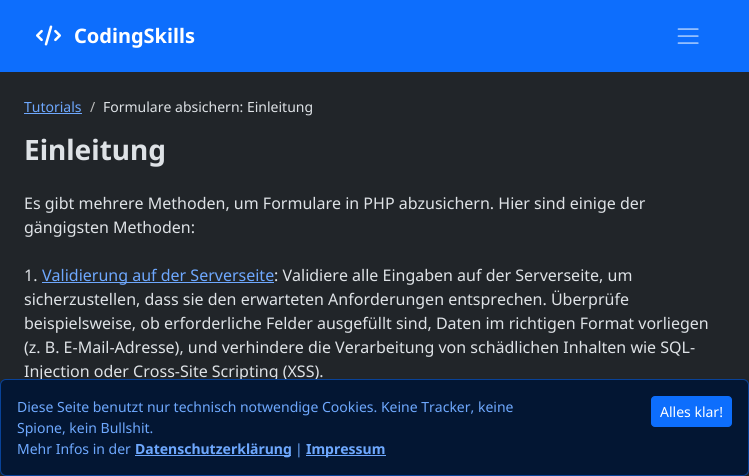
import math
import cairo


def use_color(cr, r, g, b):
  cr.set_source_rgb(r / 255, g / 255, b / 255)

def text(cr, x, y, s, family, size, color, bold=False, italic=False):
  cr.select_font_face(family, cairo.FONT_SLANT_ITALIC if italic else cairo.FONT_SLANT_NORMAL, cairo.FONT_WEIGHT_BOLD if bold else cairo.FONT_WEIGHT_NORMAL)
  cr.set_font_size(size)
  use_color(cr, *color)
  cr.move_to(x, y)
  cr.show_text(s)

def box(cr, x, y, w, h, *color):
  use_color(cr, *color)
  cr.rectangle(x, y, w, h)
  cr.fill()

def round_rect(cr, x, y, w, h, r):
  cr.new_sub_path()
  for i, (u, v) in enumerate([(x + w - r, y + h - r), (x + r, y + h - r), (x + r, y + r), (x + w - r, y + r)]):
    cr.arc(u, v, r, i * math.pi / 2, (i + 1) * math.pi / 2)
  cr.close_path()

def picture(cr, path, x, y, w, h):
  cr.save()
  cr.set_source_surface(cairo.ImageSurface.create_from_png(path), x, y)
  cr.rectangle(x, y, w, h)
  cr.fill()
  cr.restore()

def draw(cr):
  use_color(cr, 33, 37, 41)
  cr.paint()
  box(cr, 0, 0, 749, 72, 13, 110, 253)
  picture(cr, "img_01.png", 36, 25, 25, 21)
  picture(cr, "img_02.png", 677, 28, 22, 16)
  box(cr, 24, 113, 58, 1, 110, 168, 254)
  box(cr, 42, 282, 232, 1, 110, 168, 254)
  text(cr, 74, 43, "CodingSkills", "Noto Sans", 20, (255, 255, 255), bold=True)
  text(cr, 24, 112, "Tutorials", "Noto Sans", 14, (110, 168, 254))
  text(cr, 90, 112, "/", "Noto Sans", 14, (187, 187, 187))
  text(cr, 103, 112, "Formulare absichern: Einleitung", "Noto Sans", 14, (222, 226, 230))
  text(cr, 24, 160, "Einleitung", "Noto Sans", 28, (222, 226, 230), bold=True)
  text(cr, 24, 209, "Es gibt mehrere Methoden, um Formulare in PHP abzusichern. Hier sind einige der", "Noto Sans", 16, (222, 226, 230))
  text(cr, 24, 233, "gängigsten Methoden:", "Noto Sans", 16, (222, 226, 230))
  text(cr, 24, 281, "1.", "Noto Sans", 16, (222, 226, 230))
  text(cr, 42, 281, "Validierung auf der Serverseite", "Noto Sans", 16, (110, 168, 254))
  text(cr, 274, 281, ": Validiere alle Eingaben auf der Serverseite, um", "Noto Sans", 16, (222, 226, 230))
  text(cr, 24, 305, "sicherzustellen, dass sie den erwarteten Anforderungen entsprechen. Überprüfe", "Noto Sans", 16, (222, 226, 230))
  text(cr, 24, 329, "beispielsweise, ob erforderliche Felder ausgefüllt sind, Daten im richtigen Format vorliegen", "Noto Sans", 16, (222, 226, 230))
  text(cr, 24, 353, "(z. B. E-Mail-Adresse), und verhindere die Verarbeitung von schädlichen Inhalten wie SQL-", "Noto Sans", 16, (222, 226, 230))
  text(cr, 24, 377, "Injection oder Cross-Site Scripting (XSS).", "Noto Sans", 16, (222, 226, 230))
  use_color(cr, 3, 22, 51)
  round_rect(cr, 0.5, 379.5, 748, 96, 5.5)
  cr.fill_preserve()
  use_color(cr, 8, 66, 152)
  cr.set_line_width(1)
  cr.stroke()
  text(cr, 17, 412, "Diese Seite benutzt nur technisch notwendige Cookies. Keine Tracker, keine", "Noto Sans", 14, (110, 168, 254))
  text(cr, 17, 433, "Spione, kein Bullshit.", "Noto Sans", 14, (110, 168, 254))
  text(cr, 17, 454, "Mehr Infos in der", "Noto Sans", 14, (110, 168, 254))
  box(cr, 135, 455, 156, 1, 110, 168, 254)
  text(cr, 135, 454, "Datenschutzerklärung", "Noto Sans", 14, (110, 168, 254), bold=True)
  text(cr, 295, 454, "|", "Noto Sans", 14, (110, 168, 254))
  box(cr, 306, 455, 80, 1, 110, 168, 254)
  text(cr, 306, 454, "Impressum", "Noto Sans", 14, (110, 168, 254), bold=True)
  use_color(cr, 13, 110, 253)
  round_rect(cr, 651.5, 396.5, 80, 30, 3.5)
  cr.fill_preserve()
  cr.stroke()
  text(cr, 660, 417, "Alles klar!", "Noto Sans", 14, (255, 255, 255))


surface = cairo.ImageSurface(cairo.FORMAT_RGB24, 749, 476)
cr = cairo.Context(surface)
options = cairo.FontOptions()
options.set_hint_metrics(cairo.HINT_METRICS_OFF)
options.set_hint_style(cairo.HINT_STYLE_NONE)
cr.set_font_options(options)
cr.set_miter_limit(4)
draw(cr)
surface.write_to_png("out.png")
